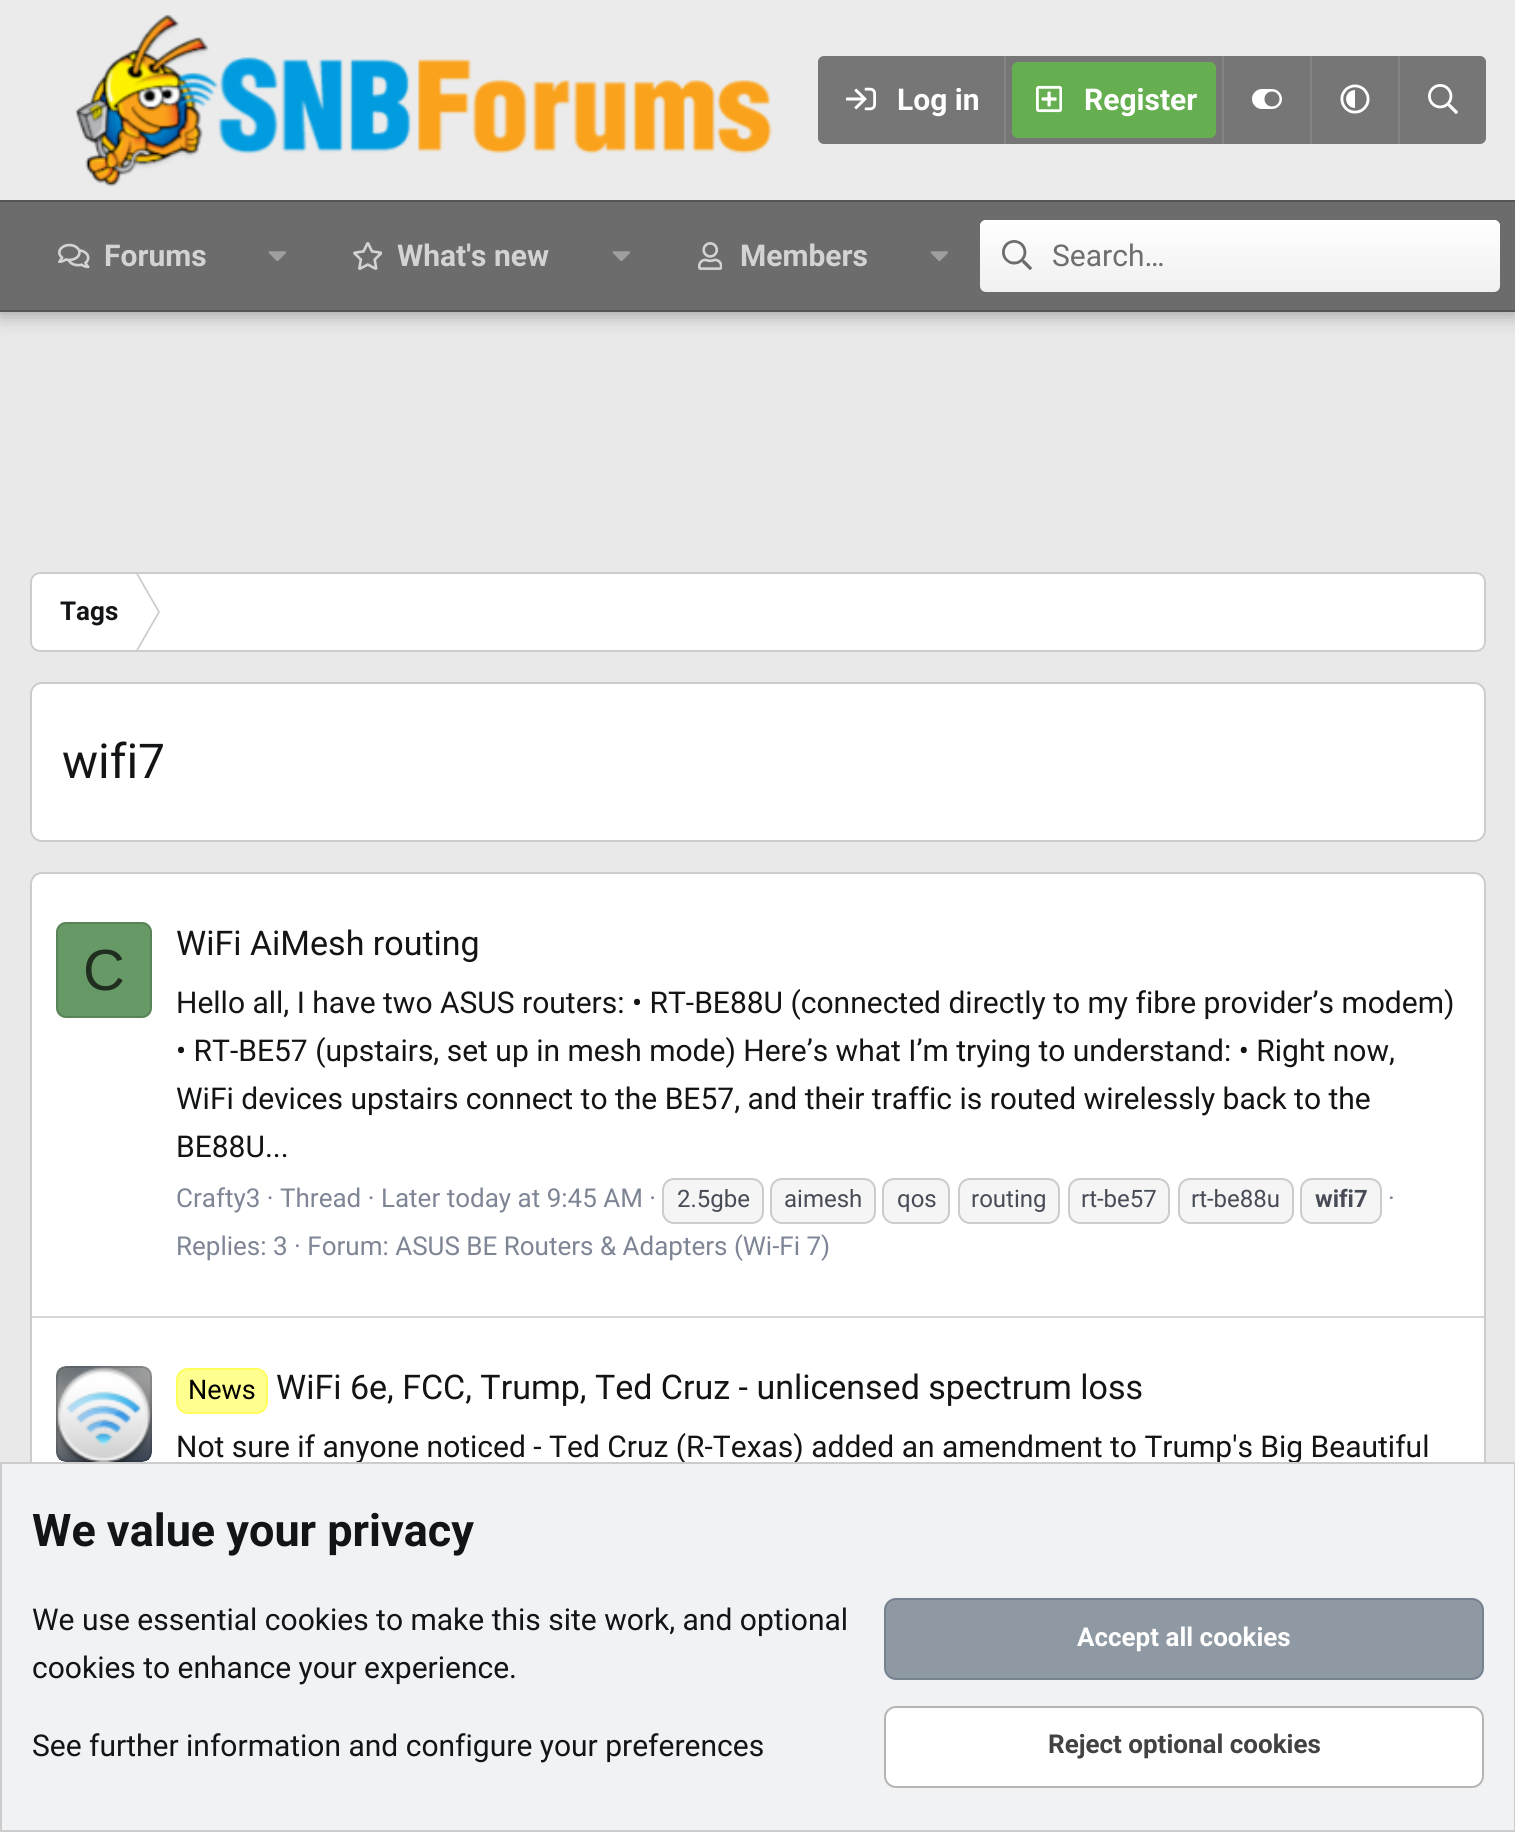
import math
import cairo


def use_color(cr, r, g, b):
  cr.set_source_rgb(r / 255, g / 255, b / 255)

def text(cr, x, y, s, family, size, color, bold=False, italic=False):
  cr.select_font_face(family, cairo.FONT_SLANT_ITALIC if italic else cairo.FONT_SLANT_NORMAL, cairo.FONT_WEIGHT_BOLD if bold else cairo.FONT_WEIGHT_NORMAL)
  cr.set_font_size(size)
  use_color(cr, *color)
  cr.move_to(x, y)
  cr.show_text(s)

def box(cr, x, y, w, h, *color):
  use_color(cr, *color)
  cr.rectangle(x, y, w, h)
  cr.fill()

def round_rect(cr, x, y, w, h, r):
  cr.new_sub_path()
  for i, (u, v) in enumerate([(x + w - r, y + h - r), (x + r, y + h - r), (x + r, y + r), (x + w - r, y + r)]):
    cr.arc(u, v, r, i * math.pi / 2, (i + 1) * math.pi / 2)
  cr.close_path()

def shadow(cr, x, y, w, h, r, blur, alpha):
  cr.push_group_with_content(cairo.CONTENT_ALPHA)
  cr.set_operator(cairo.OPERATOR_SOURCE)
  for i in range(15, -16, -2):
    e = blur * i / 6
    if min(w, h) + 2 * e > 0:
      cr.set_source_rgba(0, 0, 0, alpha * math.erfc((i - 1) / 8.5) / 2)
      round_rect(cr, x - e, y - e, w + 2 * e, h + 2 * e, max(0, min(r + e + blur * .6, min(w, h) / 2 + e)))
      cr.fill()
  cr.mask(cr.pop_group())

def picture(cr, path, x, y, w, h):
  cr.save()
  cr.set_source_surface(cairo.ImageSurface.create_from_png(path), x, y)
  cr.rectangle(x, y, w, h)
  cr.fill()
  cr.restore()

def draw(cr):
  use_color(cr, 233, 233, 233)
  cr.paint()
  use_color(cr, 0, 0, 0)
  shadow(cr, 0, 2, 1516, 312, 0, 10, 0.35)
  box(cr, 0, 0, 1515, 200, 235, 235, 235)
  picture(cr, "img_01.png", 75, 14, 698, 173)
  use_color(cr, 118, 118, 118)
  round_rect(cr, 818, 56, 668, 88, 6)
  cr.fill()
  picture(cr, "img_02.png", 846, 87, 30, 24)
  box(cr, 1004, 56, 2, 88, 132, 132, 132)
  use_color(cr, 102, 175, 80)
  round_rect(cr, 1012, 62, 204, 76, 6)
  cr.fill()
  picture(cr, "img_03.png", 1036, 85, 26, 28)
  box(cr, 1222, 56, 2, 88, 132, 132, 132)
  picture(cr, "img_04.png", 1252, 89, 30, 20)
  box(cr, 1310, 56, 2, 88, 132, 132, 132)
  picture(cr, "img_05.png", 1340, 84, 30, 30)
  box(cr, 1398, 56, 2, 88, 132, 132, 132)
  picture(cr, "img_06.png", 1428, 84, 30, 30)
  box(cr, 0, 202, 1515, 108, 108, 108, 108)
  box(cr, 0, 200, 1515, 2, 86, 86, 86)
  box(cr, 0, 310, 1515, 2, 86, 86, 86)
  picture(cr, "img_07.png", 58, 243, 32, 26)
  picture(cr, "img_08.png", 268, 251, 18, 11)
  picture(cr, "img_09.png", 353, 242, 29, 28)
  picture(cr, "img_08.png", 612, 251, 18, 11)
  picture(cr, "img_10.png", 698, 242, 24, 28)
  picture(cr, "img_08.png", 930, 251, 18, 11)
  use_color(cr, 240, 240, 240)
  round_rect(cr, 980, 220, 520, 72, 6)
  cr.fill()
  gradient = cairo.LinearGradient(1240, 220, 1240, 292)
  gradient.add_color_stop_rgba(0, 1, 1, 1, 1)
  gradient.add_color_stop_rgba(1, 1, 1, 1, 0)
  cr.set_source(gradient)
  round_rect(cr, 980, 220, 520, 72, 6)
  cr.fill()
  picture(cr, "img_11.png", 1002, 240, 30, 30)
  use_color(cr, 255, 255, 255)
  round_rect(cr, 30, 572, 1456, 80, 10)
  cr.fill()
  use_color(cr, 204, 204, 204)
  cr.new_path()
  cr.move_to(135, 572)
  cr.line_to(137, 572)
  cr.line_to(160, 612)
  cr.line_to(158, 612)
  cr.close_path()
  cr.fill()
  cr.new_path()
  cr.move_to(158, 612)
  cr.line_to(160, 612)
  cr.line_to(137, 652)
  cr.line_to(135, 652)
  cr.close_path()
  cr.fill()
  round_rect(cr, 31, 573, 1454, 78, 9)
  cr.stroke()
  use_color(cr, 255, 255, 255)
  round_rect(cr, 31, 683, 1454, 158, 11)
  cr.fill_preserve()
  use_color(cr, 204, 204, 204)
  cr.stroke()
  use_color(cr, 255, 255, 255)
  round_rect(cr, 31, 873, 1454, 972, 11)
  cr.fill_preserve()
  use_color(cr, 204, 204, 204)
  cr.stroke()
  use_color(cr, 102, 153, 102)
  round_rect(cr, 56, 922, 96, 96, 10)
  cr.fill()
  round_rect(cr, 57, 923, 94, 94, 9)
  cr.set_source_rgba(0.071, 0.078, 0.086, 0.15)
  cr.stroke()
  use_color(cr, 245, 245, 245)
  round_rect(cr, 663, 1179, 100, 44, 11)
  cr.fill_preserve()
  use_color(cr, 204, 204, 204)
  cr.stroke()
  use_color(cr, 245, 245, 245)
  round_rect(cr, 771, 1179, 104, 44, 11)
  cr.fill_preserve()
  use_color(cr, 204, 204, 204)
  cr.stroke()
  use_color(cr, 245, 245, 245)
  round_rect(cr, 883, 1179, 66, 44, 11)
  cr.fill_preserve()
  use_color(cr, 204, 204, 204)
  cr.stroke()
  use_color(cr, 245, 245, 245)
  round_rect(cr, 959, 1179, 100, 44, 11)
  cr.fill_preserve()
  use_color(cr, 204, 204, 204)
  cr.stroke()
  use_color(cr, 245, 245, 245)
  round_rect(cr, 1069, 1179, 100, 44, 11)
  cr.fill_preserve()
  use_color(cr, 204, 204, 204)
  cr.stroke()
  use_color(cr, 245, 245, 245)
  round_rect(cr, 1179, 1179, 114, 44, 11)
  cr.fill_preserve()
  use_color(cr, 204, 204, 204)
  cr.stroke()
  use_color(cr, 245, 245, 245)
  round_rect(cr, 1301, 1179, 80, 44, 11)
  cr.fill_preserve()
  use_color(cr, 204, 204, 204)
  cr.stroke()
  box(cr, 32, 1316, 1452, 2, 214, 214, 214)
  picture(cr, "img_12.png", 56, 1366, 96, 96)
  round_rect(cr, 57, 1367, 94, 94, 9)
  cr.set_source_rgba(0.071, 0.078, 0.086, 0.15)
  cr.stroke()
  use_color(cr, 255, 255, 143)
  round_rect(cr, 177, 1369, 90, 44, 11)
  cr.fill_preserve()
  use_color(cr, 255, 255, 92)
  cr.stroke()
  text(cr, 897, 110, "Log in", "Roboto", 30, (255, 255, 255), bold=True)
  text(cr, 1084, 110, "Register", "Roboto", 30, (255, 255, 255), bold=True)
  text(cr, 104, 266, "Forums", "Roboto", 30, (211, 211, 211), bold=True)
  text(cr, 397, 266, "What's new", "Roboto", 30, (211, 211, 211), bold=True)
  text(cr, 740, 266, "Members", "Roboto", 30, (211, 211, 211), bold=True)
  text(cr, 1052, 266, "Search…", "Roboto", 30, (110, 110, 110))
  text(cr, 60, 620, "Tags", "Roboto", 26, (18, 20, 22), bold=True)
  text(cr, 62, 778, "wifi7", "Roboto", 48, (18, 20, 22))
  text(cr, 83, 990, "C", "Liberation Sans", 58, (31, 46, 31))
  text(cr, 176, 955, "WiFi AiMesh routing", "Roboto", 34, (18, 20, 22))
  text(cr, 176, 1013, "Hello all, I have two ASUS routers: • RT-BE88U (connected directly to my fibre provider’s modem)", "Roboto", 30, (18, 20, 22))
  text(cr, 176, 1061, "• RT-BE57 (upstairs, set up in mesh mode) Here’s what I’m trying to understand: • Right now,", "Roboto", 30, (18, 20, 22))
  text(cr, 176, 1109, "WiFi devices upstairs connect to the BE57, and their traffic is routed wirelessly back to the", "Roboto", 30, (18, 20, 22))
  text(cr, 176, 1157, "BE88U...", "Roboto", 30, (18, 20, 22))
  text(cr, 176, 1207, "Crafty3 · Thread · Later today at 9:45 AM ·", "Roboto", 26, (126, 133, 149))
  text(cr, 677, 1207, "2.5gbe", "Roboto", 24, (71, 76, 87))
  text(cr, 784, 1207, "aimesh", "Roboto", 24, (71, 76, 87))
  text(cr, 897, 1207, "qos", "Roboto", 24, (71, 76, 87))
  text(cr, 971, 1207, "routing", "Roboto", 24, (71, 76, 87))
  text(cr, 1081, 1207, "rt-be57", "Roboto", 24, (71, 76, 87))
  text(cr, 1191, 1207, "rt-be88u", "Roboto", 24, (71, 76, 87))
  text(cr, 1315, 1207, "wifi7", "Roboto", 24, (71, 76, 87), bold=True)
  text(cr, 1388, 1207, "·", "Roboto", 26, (126, 133, 149))
  text(cr, 176, 1255, "Replies: 3 · Forum: ASUS BE Routers & Adapters (Wi-Fi 7)", "Roboto", 26, (126, 133, 149))
  text(cr, 188, 1399, "News", "Roboto", 27, (0, 0, 0))
  text(cr, 276, 1399, "WiFi 6e, FCC, Trump, Ted Cruz - unlicensed spectrum loss", "Roboto", 34, (18, 20, 22))
  text(cr, 176, 1457, "Not sure if anyone noticed - Ted Cruz (R-Texas) added an amendment to Trump's Big Beautiful", "Roboto", 30, (18, 20, 22))
  use_color(cr, 241, 242, 244)
  cr.rectangle(1, 1463, 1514, 368)
  cr.fill_preserve()
  use_color(cr, 204, 204, 204)
  cr.stroke()
  text(cr, 32, 1546, "We value your privacy", "Roboto", 45, (18, 20, 22), bold=True)
  text(cr, 32, 1630, "We use essential cookies to make this site work, and optional", "Roboto", 30, (18, 20, 22))
  text(cr, 32, 1678, "cookies to enhance your experience.", "Roboto", 30, (18, 20, 22))
  text(cr, 32, 1756, "See further information and configure your preferences", "Roboto", 30, (18, 20, 22))
  use_color(cr, 143, 153, 163)
  round_rect(cr, 885, 1599, 598, 80, 11)
  cr.fill_preserve()
  use_color(cr, 118, 130, 143)
  cr.stroke()
  text(cr, 1077, 1646, "Accept all cookies", "Roboto", 26, (255, 255, 255), bold=True)
  round_rect(cr, 885, 1707, 598, 80, 11)
  cr.fill_preserve()
  use_color(cr, 181, 181, 181)
  cr.stroke()
  text(cr, 1048, 1753, "Reject optional cookies", "Roboto", 26, (66, 66, 66), bold=True)


surface = cairo.ImageSurface(cairo.FORMAT_RGB24, 1515, 1832)
cr = cairo.Context(surface)
options = cairo.FontOptions()
options.set_hint_metrics(cairo.HINT_METRICS_OFF)
options.set_hint_style(cairo.HINT_STYLE_NONE)
cr.set_font_options(options)
cr.set_miter_limit(4)
draw(cr)
surface.write_to_png("out.png")
